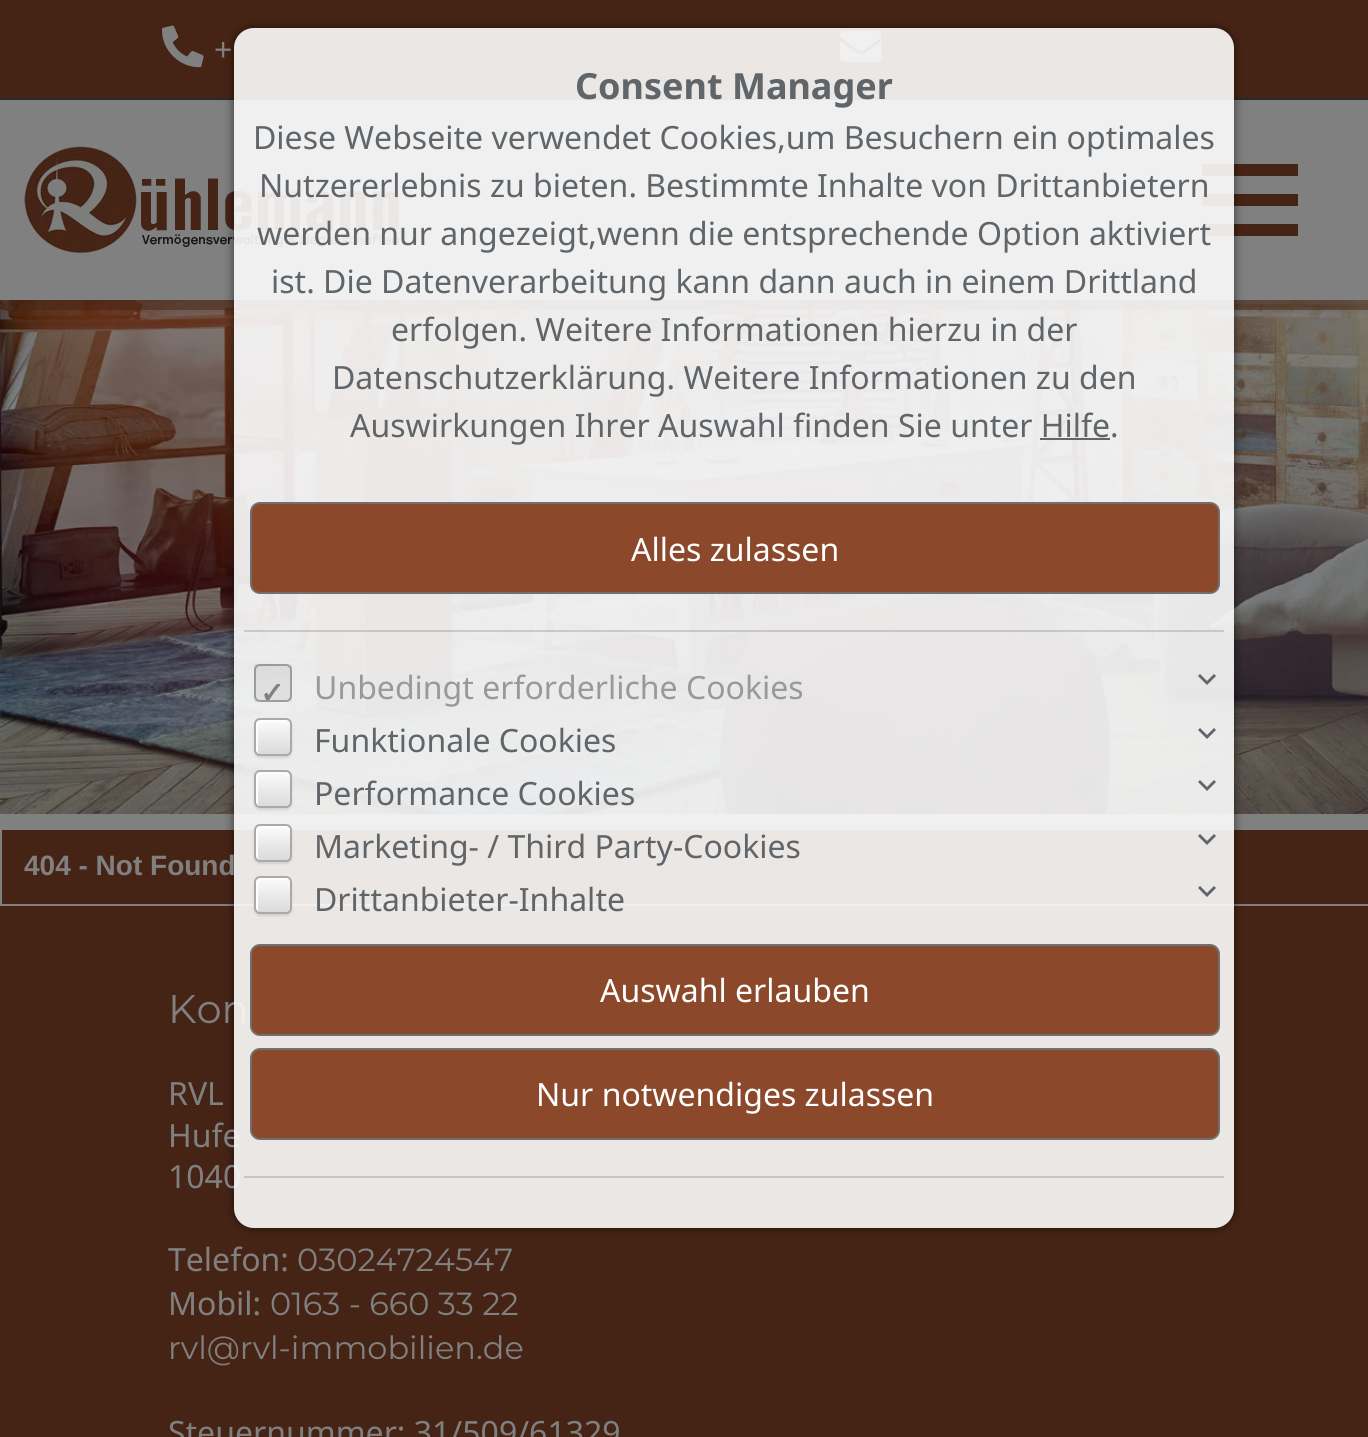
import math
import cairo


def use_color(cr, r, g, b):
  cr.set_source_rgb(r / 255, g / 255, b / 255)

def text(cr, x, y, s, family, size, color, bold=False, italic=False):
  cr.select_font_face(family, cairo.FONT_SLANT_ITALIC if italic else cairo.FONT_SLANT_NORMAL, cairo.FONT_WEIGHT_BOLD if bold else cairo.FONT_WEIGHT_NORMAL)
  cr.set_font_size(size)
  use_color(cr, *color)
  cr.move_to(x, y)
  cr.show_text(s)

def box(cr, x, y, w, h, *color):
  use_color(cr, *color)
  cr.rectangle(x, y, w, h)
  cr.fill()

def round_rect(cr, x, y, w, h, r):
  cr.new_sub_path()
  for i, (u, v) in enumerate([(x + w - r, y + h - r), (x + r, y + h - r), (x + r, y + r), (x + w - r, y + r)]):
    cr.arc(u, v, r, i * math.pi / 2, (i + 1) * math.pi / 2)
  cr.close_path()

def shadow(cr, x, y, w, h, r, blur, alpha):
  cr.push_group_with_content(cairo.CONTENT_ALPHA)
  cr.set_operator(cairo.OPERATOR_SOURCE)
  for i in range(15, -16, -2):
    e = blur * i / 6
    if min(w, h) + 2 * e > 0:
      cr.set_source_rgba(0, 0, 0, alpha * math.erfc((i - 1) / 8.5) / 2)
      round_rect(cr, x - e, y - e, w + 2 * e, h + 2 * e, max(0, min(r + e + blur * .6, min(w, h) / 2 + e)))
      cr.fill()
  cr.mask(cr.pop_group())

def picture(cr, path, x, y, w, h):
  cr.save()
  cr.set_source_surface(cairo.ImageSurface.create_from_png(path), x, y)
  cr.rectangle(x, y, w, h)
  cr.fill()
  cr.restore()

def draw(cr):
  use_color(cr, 128, 128, 128)
  cr.paint()
  picture(cr, "img_04.png", 0, 300, 1368, 514)
  cr.save()
  cr.rectangle(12, 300, 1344, 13)
  cr.clip()
  use_color(cr, 0, 0, 0)
  shadow(cr, 20, 140, 1328, 160, 0, 10, 0.2)
  cr.restore()
  box(cr, 0, 0, 1368, 98, 70, 36, 21)
  box(cr, 0, 98, 1368, 2, 42, 41, 41)
  picture(cr, "img_01.png", 162, 25, 42, 43)
  picture(cr, "img_02.png", 840, 30, 42, 32)
  picture(cr, "img_03.png", 24, 146, 375, 107)
  cr.set_source_rgba(0.275, 0.141, 0.082, 0.5)
  cr.rectangle(0, 300, 1368, 10)
  cr.fill()
  use_color(cr, 70, 36, 21)
  cr.new_path()
  cr.move_to(1202, 236)
  cr.line_to(1202, 224)
  cr.line_to(1298, 224)
  cr.line_to(1298, 236)
  cr.close_path()
  cr.move_to(1202, 164)
  cr.line_to(1298, 164)
  cr.line_to(1298, 176)
  cr.line_to(1202, 176)
  cr.close_path()
  cr.move_to(1202, 206)
  cr.line_to(1202, 194)
  cr.line_to(1298, 194)
  cr.line_to(1298, 206)
  cr.close_path()
  cr.fill()
  box(cr, 2, 830, 1366, 74, 70, 36, 21)
  box(cr, 0, 906, 1368, 531, 70, 36, 21)
  cr.save()
  cr.set_fill_rule(cairo.FILL_RULE_EVEN_ODD)
  cr.new_path()
  cr.move_to(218, 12)
  cr.line_to(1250, 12)
  cr.line_to(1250, 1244)
  cr.line_to(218, 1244)
  cr.close_path()
  cr.move_to(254, 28)
  cr.line_to(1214, 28)
  cr.curve_to(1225, 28, 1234, 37, 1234, 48)
  cr.line_to(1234, 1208)
  cr.curve_to(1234, 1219, 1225, 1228, 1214, 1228)
  cr.line_to(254, 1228)
  cr.curve_to(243, 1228, 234, 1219, 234, 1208)
  cr.line_to(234, 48)
  cr.curve_to(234, 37, 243, 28, 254, 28)
  cr.close_path()
  cr.clip()
  use_color(cr, 0, 0, 0)
  shadow(cr, 234, 28, 1000, 1200, 20, 5, 0.6)
  cr.restore()
  text(cr, 214, 61, "+", "Noto Sans", 32, (128, 128, 128))
  text(cr, 24, 875, "404 - Not Found", "Liberation Sans", 28, (128, 128, 128), bold=True)
  text(cr, 168, 1023, "Kon", "Montserrat", 40, (128, 128, 128))
  text(cr, 168, 1105, "RVL", "Noto Sans", 32, (128, 128, 128))
  text(cr, 168, 1147, "Hufe", "Noto Sans", 32, (128, 128, 128))
  text(cr, 168, 1188, "1040", "Noto Sans", 32, (128, 128, 128))
  cr.set_source_rgba(0.988, 0.988, 0.988, 0.9)
  round_rect(cr, 234, 28, 1000, 1200, 20)
  cr.fill()
  cr.set_source_rgba(0.376, 0.396, 0.412, 0.25)
  cr.rectangle(244, 1176, 980, 2)
  cr.fill()
  use_color(cr, 96, 101, 105)
  cr.new_path()
  cr.move_to(1214, 834)
  cr.line_to(1216, 836)
  cr.line_to(1207, 845)
  cr.line_to(1198, 836)
  cr.line_to(1200, 834)
  cr.line_to(1207, 841)
  cr.close_path()
  cr.move_to(1214, 886)
  cr.line_to(1216, 888)
  cr.line_to(1207, 897)
  cr.line_to(1198, 888)
  cr.line_to(1200, 886)
  cr.line_to(1207, 893)
  cr.close_path()
  cr.fill()
  cr.new_path()
  cr.move_to(1214, 728)
  cr.line_to(1216, 730)
  cr.line_to(1207, 739)
  cr.line_to(1198, 730)
  cr.line_to(1200, 728)
  cr.line_to(1207, 735)
  cr.close_path()
  cr.move_to(1214, 780)
  cr.line_to(1216, 782)
  cr.line_to(1207, 791)
  cr.line_to(1198, 782)
  cr.line_to(1200, 780)
  cr.line_to(1207, 787)
  cr.close_path()
  cr.fill()
  cr.new_path()
  cr.move_to(1214, 674)
  cr.line_to(1216, 676)
  cr.line_to(1207, 685)
  cr.line_to(1198, 676)
  cr.line_to(1200, 674)
  cr.line_to(1207, 681)
  cr.close_path()
  cr.fill()
  text(cr, 314, 699, "Unbedingt erforderliche Cookies", "Noto Sans", 32, (151, 154, 156))
  cr.set_source_rgba(0, 0, 0, 0.06)
  cr.rectangle(254, 664, 38, 38)
  cr.fill()
  round_rect(cr, 255, 665, 36, 36, 5)
  cr.set_source_rgba(0, 0, 0, 0.3)
  cr.stroke()
  text(cr, 260, 703, "✓", "DejaVu Sans", 29, (128, 128, 128), bold=True)
  cr.set_source_rgba(0.376, 0.396, 0.412, 0.25)
  cr.rectangle(244, 630, 980, 2)
  cr.fill()
  use_color(cr, 140, 72, 42)
  round_rect(cr, 251, 1049, 968, 90, 9)
  cr.fill_preserve()
  use_color(cr, 112, 112, 112)
  cr.stroke()
  text(cr, 536, 1106, "Nur notwendiges zulassen", "Noto Sans", 32, (255, 255, 255))
  use_color(cr, 140, 72, 42)
  round_rect(cr, 251, 945, 968, 90, 9)
  cr.fill_preserve()
  use_color(cr, 112, 112, 112)
  cr.stroke()
  text(cr, 600, 1002, "Auswahl erlauben", "Noto Sans", 32, (255, 255, 255))
  use_color(cr, 140, 72, 42)
  round_rect(cr, 251, 503, 968, 90, 9)
  cr.fill_preserve()
  use_color(cr, 112, 112, 112)
  cr.stroke()
  text(cr, 631, 561, "Alles zulassen", "Noto Sans", 32, (255, 255, 255))
  box(cr, 1040, 438, 70, 2, 96, 101, 105)
  text(cr, 350, 437, "Auswirkungen Ihrer Auswahl finden Sie unter Hilfe.", "Noto Sans", 32, (96, 101, 105))
  text(cr, 332, 389, "Datenschutzerklärung. Weitere Informationen zu den", "Noto Sans", 32, (96, 101, 105))
  text(cr, 391, 341, "erfolgen. Weitere Informationen hierzu in der", "Noto Sans", 32, (96, 101, 105))
  text(cr, 271, 293, "ist. Die Datenverarbeitung kann dann auch in einem Drittland", "Noto Sans", 32, (96, 101, 105))
  text(cr, 257, 245, "werden nur angezeigt,wenn die entsprechende Option aktiviert", "Noto Sans", 32, (96, 101, 105))
  text(cr, 259, 197, "Nutzererlebnis zu bieten. Bestimmte Inhalte von Drittanbietern", "Noto Sans", 32, (96, 101, 105))
  text(cr, 253, 149, "Diese Webseite verwendet Cookies,um Besuchern ein optimales", "Noto Sans", 32, (96, 101, 105))
  text(cr, 575, 99, "Consent Manager", "Noto Sans", 36, (96, 101, 105), bold=True)
  text(cr, 314, 911, "Drittanbieter-Inhalte", "Noto Sans", 32, (96, 101, 105))
  use_color(cr, 0, 0, 0)
  shadow(cr, 254, 878, 38, 38, 6, 1, 0.1)
  cr.save()
  round_rect(cr, 254, 876, 38, 38, 6)
  cr.clip()
  gradient = cairo.LinearGradient(273, 878, 273, 912)
  gradient.add_color_stop_rgba(0, 0.988, 0.988, 0.988, 1)
  gradient.add_color_stop_rgba(1, 0.855, 0.855, 0.855, 1)
  cr.set_source(gradient)
  cr.rectangle(254, 878, 38, 34)
  cr.fill()
  cr.restore()
  use_color(cr, 255, 255, 255)
  cr.new_path()
  cr.move_to(262, 880)
  cr.line_to(288, 880)
  cr.line_to(289.5, 880.5)
  cr.curve_to(289, 879, 287.5, 878, 286, 878)
  cr.line_to(260, 878)
  cr.curve_to(258, 878, 256, 880, 256, 882)
  cr.line_to(256, 908)
  cr.curve_to(256, 909.5, 257, 911, 258.5, 911.5)
  cr.line_to(258, 910)
  cr.line_to(258, 884)
  cr.curve_to(258, 882, 260, 880, 262, 880)
  cr.close_path()
  cr.fill()
  round_rect(cr, 255, 877, 36, 36, 5)
  use_color(cr, 170, 170, 170)
  cr.stroke()
  text(cr, 314, 858, "Marketing- / Third Party-Cookies", "Noto Sans", 32, (96, 101, 105))
  use_color(cr, 0, 0, 0)
  shadow(cr, 254, 826, 38, 38, 6, 1, 0.1)
  cr.save()
  round_rect(cr, 254, 824, 38, 38, 6)
  cr.clip()
  gradient = cairo.LinearGradient(273, 826, 273, 860)
  gradient.add_color_stop_rgba(0, 0.988, 0.988, 0.988, 1)
  gradient.add_color_stop_rgba(1, 0.855, 0.855, 0.855, 1)
  cr.set_source(gradient)
  cr.rectangle(254, 826, 38, 34)
  cr.fill()
  cr.restore()
  use_color(cr, 255, 255, 255)
  cr.new_path()
  cr.move_to(262, 828)
  cr.line_to(288, 828)
  cr.line_to(289.5, 828.5)
  cr.curve_to(289, 827, 287.5, 826, 286, 826)
  cr.line_to(260, 826)
  cr.curve_to(258, 826, 256, 828, 256, 830)
  cr.line_to(256, 856)
  cr.curve_to(256, 857.5, 257, 859, 258.5, 859.5)
  cr.line_to(258, 858)
  cr.line_to(258, 832)
  cr.curve_to(258, 830, 260, 828, 262, 828)
  cr.close_path()
  cr.fill()
  round_rect(cr, 255, 825, 36, 36, 5)
  use_color(cr, 170, 170, 170)
  cr.stroke()
  text(cr, 314, 805, "Performance Cookies", "Noto Sans", 32, (96, 101, 105))
  use_color(cr, 0, 0, 0)
  shadow(cr, 254, 772, 38, 38, 6, 1, 0.1)
  cr.save()
  round_rect(cr, 254, 770, 38, 38, 6)
  cr.clip()
  gradient = cairo.LinearGradient(273, 772, 273, 806)
  gradient.add_color_stop_rgba(0, 0.988, 0.988, 0.988, 1)
  gradient.add_color_stop_rgba(1, 0.855, 0.855, 0.855, 1)
  cr.set_source(gradient)
  cr.rectangle(254, 772, 38, 34)
  cr.fill()
  cr.restore()
  use_color(cr, 255, 255, 255)
  cr.new_path()
  cr.move_to(262, 774)
  cr.line_to(288, 774)
  cr.line_to(289.5, 774.5)
  cr.curve_to(289, 773, 287.5, 772, 286, 772)
  cr.line_to(260, 772)
  cr.curve_to(258, 772, 256, 774, 256, 776)
  cr.line_to(256, 802)
  cr.curve_to(256, 803.5, 257, 805, 258.5, 805.5)
  cr.line_to(258, 804)
  cr.line_to(258, 778)
  cr.curve_to(258, 776, 260, 774, 262, 774)
  cr.close_path()
  cr.fill()
  round_rect(cr, 255, 771, 36, 36, 5)
  use_color(cr, 170, 170, 170)
  cr.stroke()
  text(cr, 314, 752, "Funktionale Cookies", "Noto Sans", 32, (96, 101, 105))
  use_color(cr, 0, 0, 0)
  shadow(cr, 254, 720, 38, 38, 6, 1, 0.1)
  cr.save()
  round_rect(cr, 254, 718, 38, 38, 6)
  cr.clip()
  gradient = cairo.LinearGradient(273, 720, 273, 754)
  gradient.add_color_stop_rgba(0, 0.988, 0.988, 0.988, 1)
  gradient.add_color_stop_rgba(1, 0.855, 0.855, 0.855, 1)
  cr.set_source(gradient)
  cr.rectangle(254, 720, 38, 34)
  cr.fill()
  cr.restore()
  use_color(cr, 255, 255, 255)
  cr.new_path()
  cr.move_to(262, 722)
  cr.line_to(288, 722)
  cr.line_to(289.5, 722.5)
  cr.curve_to(289, 721, 287.5, 720, 286, 720)
  cr.line_to(260, 720)
  cr.curve_to(258, 720, 256, 722, 256, 724)
  cr.line_to(256, 750)
  cr.curve_to(256, 751.5, 257, 753, 258.5, 753.5)
  cr.line_to(258, 752)
  cr.line_to(258, 726)
  cr.curve_to(258, 724, 260, 722, 262, 722)
  cr.close_path()
  cr.fill()
  round_rect(cr, 255, 719, 36, 36, 5)
  use_color(cr, 170, 170, 170)
  cr.stroke()
  text(cr, 168, 1271, "Telefon:", "Noto Sans", 32, (128, 128, 128))
  text(cr, 297, 1271, "03024724547", "Montserrat", 32, (128, 128, 128))
  text(cr, 168, 1315, "Mobil:", "Noto Sans", 32, (128, 128, 128))
  text(cr, 270, 1315, "0163 - 660 33 22", "Montserrat", 32, (128, 128, 128))
  text(cr, 168, 1359, "rvl@rvl-immobilien.de", "Montserrat", 32, (128, 128, 128))
  text(cr, 168, 1444, "Steuernummer: 31/509/61329", "Noto Sans", 32, (128, 128, 128))


surface = cairo.ImageSurface(cairo.FORMAT_RGB24, 1368, 1437)
cr = cairo.Context(surface)
options = cairo.FontOptions()
options.set_hint_metrics(cairo.HINT_METRICS_OFF)
options.set_hint_style(cairo.HINT_STYLE_NONE)
cr.set_font_options(options)
cr.set_miter_limit(4)
draw(cr)
surface.write_to_png("out.png")
